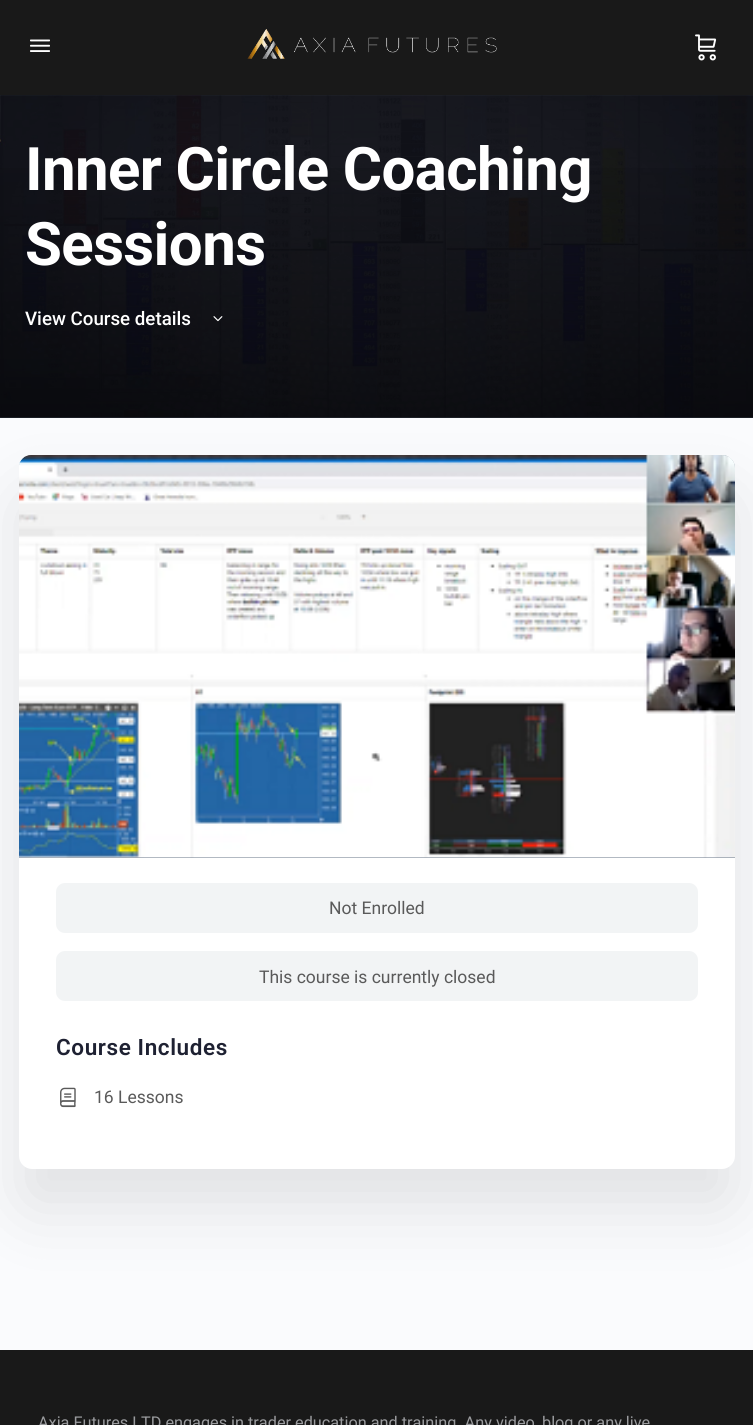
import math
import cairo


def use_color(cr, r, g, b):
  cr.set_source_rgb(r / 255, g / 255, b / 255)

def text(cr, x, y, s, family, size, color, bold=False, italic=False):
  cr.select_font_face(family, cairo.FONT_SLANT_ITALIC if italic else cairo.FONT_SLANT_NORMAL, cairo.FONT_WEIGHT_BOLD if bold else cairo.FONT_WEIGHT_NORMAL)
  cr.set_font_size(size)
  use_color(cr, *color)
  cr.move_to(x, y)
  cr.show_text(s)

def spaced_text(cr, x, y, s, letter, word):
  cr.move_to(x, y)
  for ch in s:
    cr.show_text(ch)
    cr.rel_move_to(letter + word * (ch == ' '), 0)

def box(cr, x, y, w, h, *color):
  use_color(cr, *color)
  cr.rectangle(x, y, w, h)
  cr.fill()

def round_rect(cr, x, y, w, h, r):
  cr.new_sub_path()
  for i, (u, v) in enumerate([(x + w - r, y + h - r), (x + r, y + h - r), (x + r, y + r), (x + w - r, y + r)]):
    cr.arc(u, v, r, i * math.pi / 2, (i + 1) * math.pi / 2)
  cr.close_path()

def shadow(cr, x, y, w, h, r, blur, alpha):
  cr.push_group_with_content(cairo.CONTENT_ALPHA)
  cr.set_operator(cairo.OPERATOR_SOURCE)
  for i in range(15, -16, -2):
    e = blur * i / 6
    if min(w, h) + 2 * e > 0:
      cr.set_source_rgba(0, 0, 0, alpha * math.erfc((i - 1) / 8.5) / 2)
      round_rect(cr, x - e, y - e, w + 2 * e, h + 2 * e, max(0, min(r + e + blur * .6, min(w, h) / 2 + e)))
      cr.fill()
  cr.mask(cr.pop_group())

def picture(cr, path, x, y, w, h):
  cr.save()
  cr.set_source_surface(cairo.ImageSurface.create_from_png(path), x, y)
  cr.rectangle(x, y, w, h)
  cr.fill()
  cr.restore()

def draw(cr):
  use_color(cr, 250, 251, 253)
  cr.paint()
  use_color(cr, 0, 0, 0)
  shadow(cr, 19, 495, 716, 714, 13, 34, 0.1)
  box(cr, 0, 417, 753, 1, 72, 82, 100)
  picture(cr, "img_04.png", 0, 95, 753, 323)
  cr.set_source_rgba(0.545, 0.553, 0.616, 0.05)
  cr.new_path()
  cr.move_to(0, 95)
  cr.line_to(0, 96)
  cr.line_to(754, 96)
  cr.line_to(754, 1)
  cr.line_to(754, 95)
  cr.close_path()
  cr.fill()
  box(cr, 0, 0, 753, 95, 25, 25, 25)
  picture(cr, "img_01.png", 30, 39, 20, 13)
  picture(cr, "img_02.png", 247, 29, 250, 30)
  picture(cr, "img_03.png", 695, 34, 22, 27)
  gradient = cairo.LinearGradient(377, 95, 377, 418)
  gradient.add_color_stop_rgba(0.04, 0, 0, 0, 0)
  gradient.add_color_stop_rgba(1, 0, 0, 0, 0.4)
  cr.set_source(gradient)
  cr.rectangle(0, 168, 753, 250)
  cr.fill()
  picture(cr, "img_05.png", 213, 316, 10, 6)
  use_color(cr, 100, 115, 133)
  cr.new_path()
  cr.move_to(32, 455)
  cr.line_to(722, 455)
  cr.curve_to(729, 455, 735, 461, 735, 468)
  cr.line_to(735, 858)
  cr.line_to(19, 858)
  cr.line_to(19, 468)
  cr.curve_to(19, 461, 25, 455, 32, 455)
  cr.close_path()
  cr.fill()
  picture(cr, "img_06.png", 19, 455, 716, 403)
  use_color(cr, 255, 255, 255)
  cr.new_path()
  cr.move_to(19, 858)
  cr.line_to(735, 858)
  cr.line_to(735, 1156)
  cr.curve_to(735, 1163, 729, 1169, 722, 1169)
  cr.line_to(32, 1169)
  cr.curve_to(25, 1169, 19, 1163, 19, 1156)
  cr.close_path()
  cr.fill()
  use_color(cr, 242, 244, 245)
  round_rect(cr, 56, 883, 642, 50, 9)
  cr.fill()
  round_rect(cr, 56, 951, 642, 50, 9)
  cr.fill()
  picture(cr, "img_07.png", 60, 1087, 16, 21)
  box(cr, 0, 1350, 753, 75, 25, 25, 25)
  cr.select_font_face("Roboto", cairo.FONT_SLANT_NORMAL, cairo.FONT_WEIGHT_BOLD)
  cr.set_font_size(60)
  use_color(cr, 255, 255, 255)
  spaced_text(cr, 25, 190, "Inner Circle Coaching", -0.6, 0)
  spaced_text(cr, 25, 265, "Sessions", -0.6, 0)
  text(cr, 25, 325, "View Course details", "Roboto Medium", 18.75, (255, 255, 255))
  text(cr, 329, 914, "Not Enrolled", "Roboto", 17.5, (90, 90, 90))
  text(cr, 259, 983, "This course is currently closed", "Roboto", 17.5, (90, 90, 90))
  cr.select_font_face("Roboto SemiBold")
  cr.set_font_size(22.5)
  use_color(cr, 30, 33, 50)
  spaced_text(cr, 56, 1055, "Course Includes", 0.6, 0)
  text(cr, 94, 1103, "16 Lessons", "Roboto", 17.5, (90, 90, 90))
  text(cr, 38, 1428, "Axia Futures LTD engages in trader education and training. Any video, blog or any live", "Roboto", 16.25, (155, 156, 159))


surface = cairo.ImageSurface(cairo.FORMAT_RGB24, 753, 1425)
cr = cairo.Context(surface)
options = cairo.FontOptions()
options.set_hint_metrics(cairo.HINT_METRICS_OFF)
options.set_hint_style(cairo.HINT_STYLE_NONE)
cr.set_font_options(options)
cr.set_miter_limit(4)
draw(cr)
surface.write_to_png("out.png")
